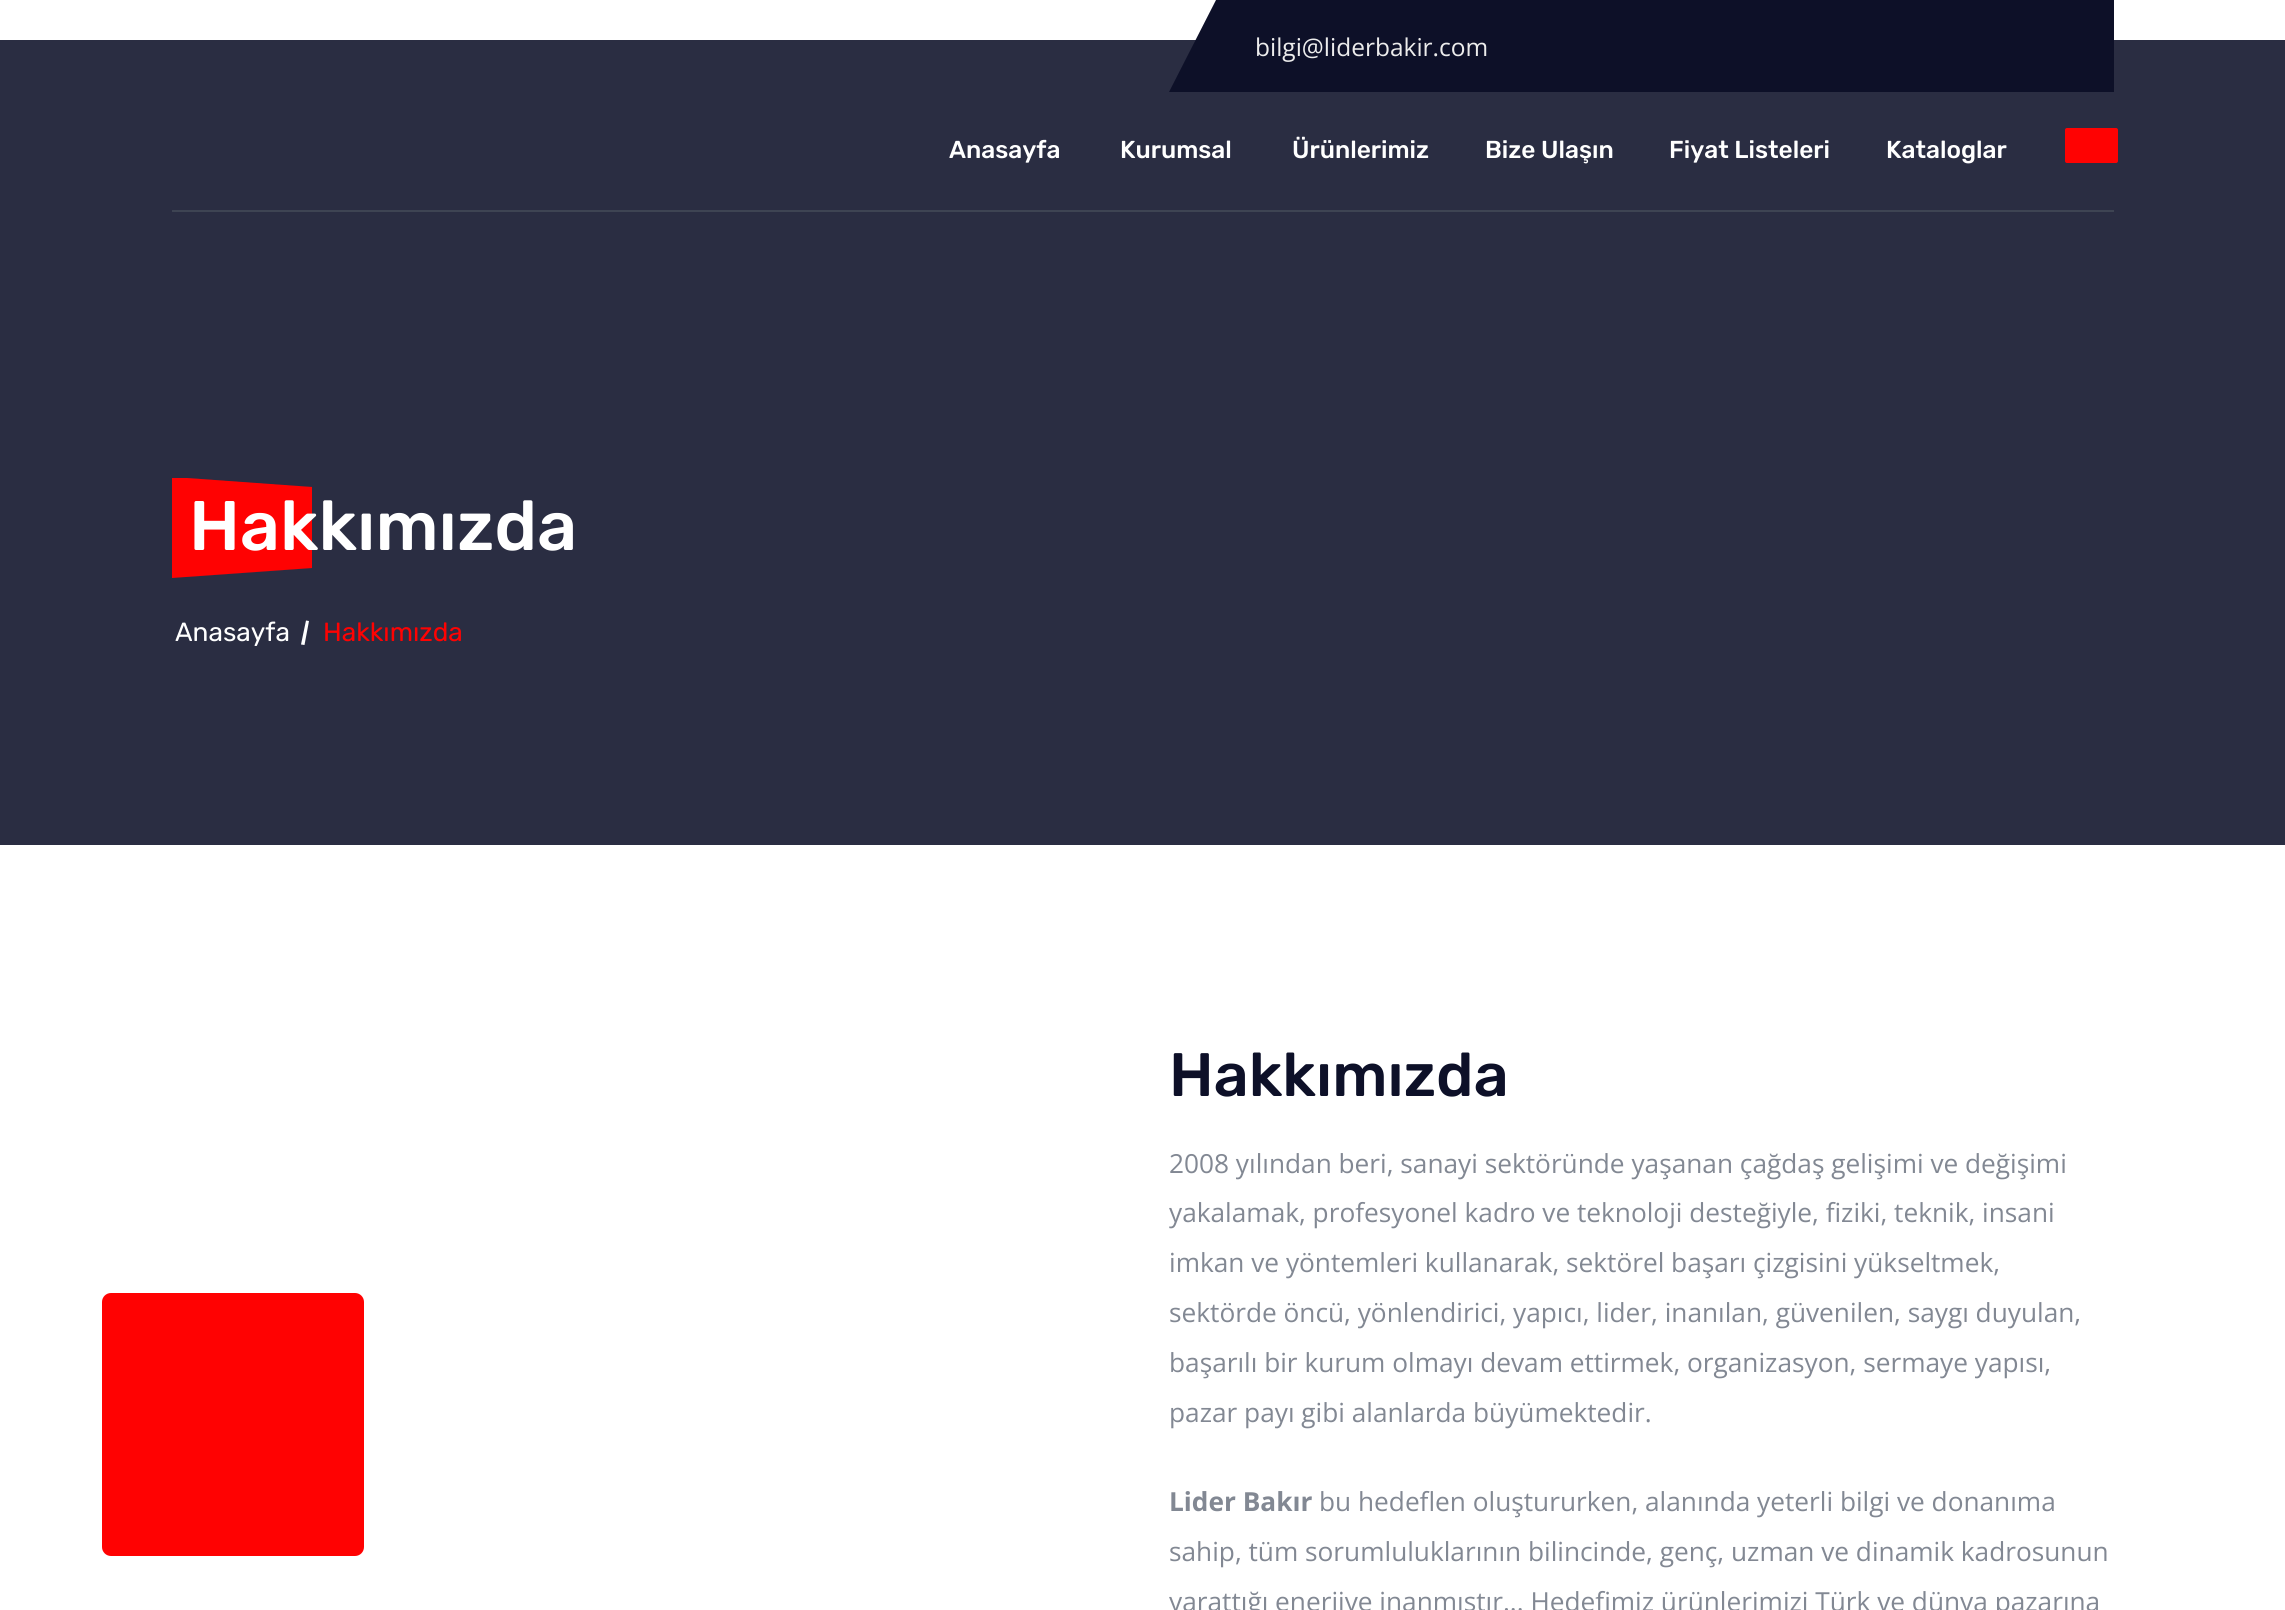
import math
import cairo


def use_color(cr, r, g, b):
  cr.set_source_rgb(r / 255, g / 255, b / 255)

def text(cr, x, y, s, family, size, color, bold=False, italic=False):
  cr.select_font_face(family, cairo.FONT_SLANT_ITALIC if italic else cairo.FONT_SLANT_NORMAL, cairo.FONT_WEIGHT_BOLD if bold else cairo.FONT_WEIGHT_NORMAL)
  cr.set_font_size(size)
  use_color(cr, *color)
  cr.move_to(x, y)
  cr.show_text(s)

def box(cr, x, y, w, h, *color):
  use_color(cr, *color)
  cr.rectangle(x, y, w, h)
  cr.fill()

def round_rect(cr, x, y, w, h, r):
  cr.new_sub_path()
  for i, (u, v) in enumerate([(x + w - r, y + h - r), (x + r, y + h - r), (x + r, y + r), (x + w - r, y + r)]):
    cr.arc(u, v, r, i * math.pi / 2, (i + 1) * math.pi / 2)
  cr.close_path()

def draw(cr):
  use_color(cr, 255, 255, 255)
  cr.paint()
  box(cr, 0, 40, 2285, 805, 42, 45, 66)
  use_color(cr, 13, 16, 40)
  cr.new_path()
  cr.move_to(1216, 0)
  cr.line_to(1169, 92)
  cr.line_to(2114, 92)
  cr.line_to(2114, 0)
  cr.close_path()
  cr.fill()
  box(cr, 172, 210, 1942, 2, 62, 68, 83)
  use_color(cr, 255, 2, 2)
  round_rect(cr, 2065, 128, 53, 35, 2)
  cr.fill()
  cr.new_path()
  cr.move_to(172, 478)
  cr.line_to(172, 578)
  cr.line_to(312, 568)
  cr.line_to(312, 487)
  cr.line_to(187, 478)
  cr.close_path()
  cr.fill()
  use_color(cr, 255, 255, 255)
  cr.new_path()
  cr.move_to(306, 620.5)
  cr.line_to(309, 621)
  cr.line_to(304.5, 645)
  cr.line_to(301, 644.5)
  cr.close_path()
  cr.fill()
  use_color(cr, 255, 2, 2)
  round_rect(cr, 102, 1293, 262, 263, 9)
  cr.fill()
  text(cr, 1255, 56, "bilgi@liderbakir.com", "Open Sans", 24.5, (236, 236, 236))
  text(cr, 949, 158, "Anasayfa", "Rubik Medium", 24.5, (255, 255, 255))
  text(cr, 1120, 158, "Kurumsal", "Rubik Medium", 24.5, (255, 255, 255))
  text(cr, 1292, 158, "Ürünlerimiz", "Rubik Medium", 24.5, (255, 255, 255))
  text(cr, 1485, 158, "Bize Ulaşın", "Rubik Medium", 24.5, (255, 255, 255))
  text(cr, 1669, 158, "Fiyat Listeleri", "Rubik Medium", 24.5, (255, 255, 255))
  text(cr, 1886, 158, "Kataloglar", "Rubik Medium", 24.5, (255, 255, 255))
  text(cr, 189, 550, "Hakkımızda", "Rubik Medium", 70, (255, 255, 255))
  text(cr, 175, 641, "Anasayfa", "Rubik", 26.25, (255, 255, 255))
  text(cr, 323, 641, "Hakkımızda", "Rubik", 26.25, (255, 2, 2))
  text(cr, 1169, 1096, "Hakkımızda", "Rubik Medium", 61.25, (13, 16, 40))
  text(cr, 1169, 1173, "2008 yılından beri, sanayi sektöründe yaşanan çağdaş gelişimi ve değişimi", "Open Sans", 26.25, (130, 136, 147))
  text(cr, 1169, 1222, "yakalamak, profesyonel kadro ve teknoloji desteğiyle, fiziki, teknik, insani", "Open Sans", 26.25, (130, 136, 147))
  text(cr, 1169, 1272, "imkan ve yöntemleri kullanarak, sektörel başarı çizgisini yükseltmek,", "Open Sans", 26.25, (130, 136, 147))
  text(cr, 1169, 1322, "sektörde öncü, yönlendirici, yapıcı, lider, inanılan, güvenilen, saygı duyulan,", "Open Sans", 26.25, (130, 136, 147))
  text(cr, 1169, 1372, "başarılı bir kurum olmayı devam ettirmek, organizasyon, sermaye yapısı,", "Open Sans", 26.25, (130, 136, 147))
  text(cr, 1169, 1422, "pazar payı gibi alanlarda büyümektedir.", "Open Sans", 26.25, (130, 136, 147))
  text(cr, 1169, 1511, "Lider Bakır", "Open Sans", 26.25, (130, 136, 147), bold=True)
  text(cr, 1319, 1511, "bu hedeflen oluştururken, alanında yeterli bilgi ve donanıma", "Open Sans", 26.25, (130, 136, 147))
  text(cr, 1169, 1561, "sahip, tüm sorumluluklarının bilincinde, genç, uzman ve dinamik kadrosunun", "Open Sans", 26.25, (130, 136, 147))
  text(cr, 1169, 1611, "yarattığı enerjiye inanmıştır... Hedefimiz ürünlerimizi Türk ve dünya pazarına", "Open Sans", 26.25, (130, 136, 147))


surface = cairo.ImageSurface(cairo.FORMAT_RGB24, 2285, 1610)
cr = cairo.Context(surface)
options = cairo.FontOptions()
options.set_hint_metrics(cairo.HINT_METRICS_OFF)
options.set_hint_style(cairo.HINT_STYLE_NONE)
cr.set_font_options(options)
cr.set_miter_limit(4)
draw(cr)
surface.write_to_png("out.png")
